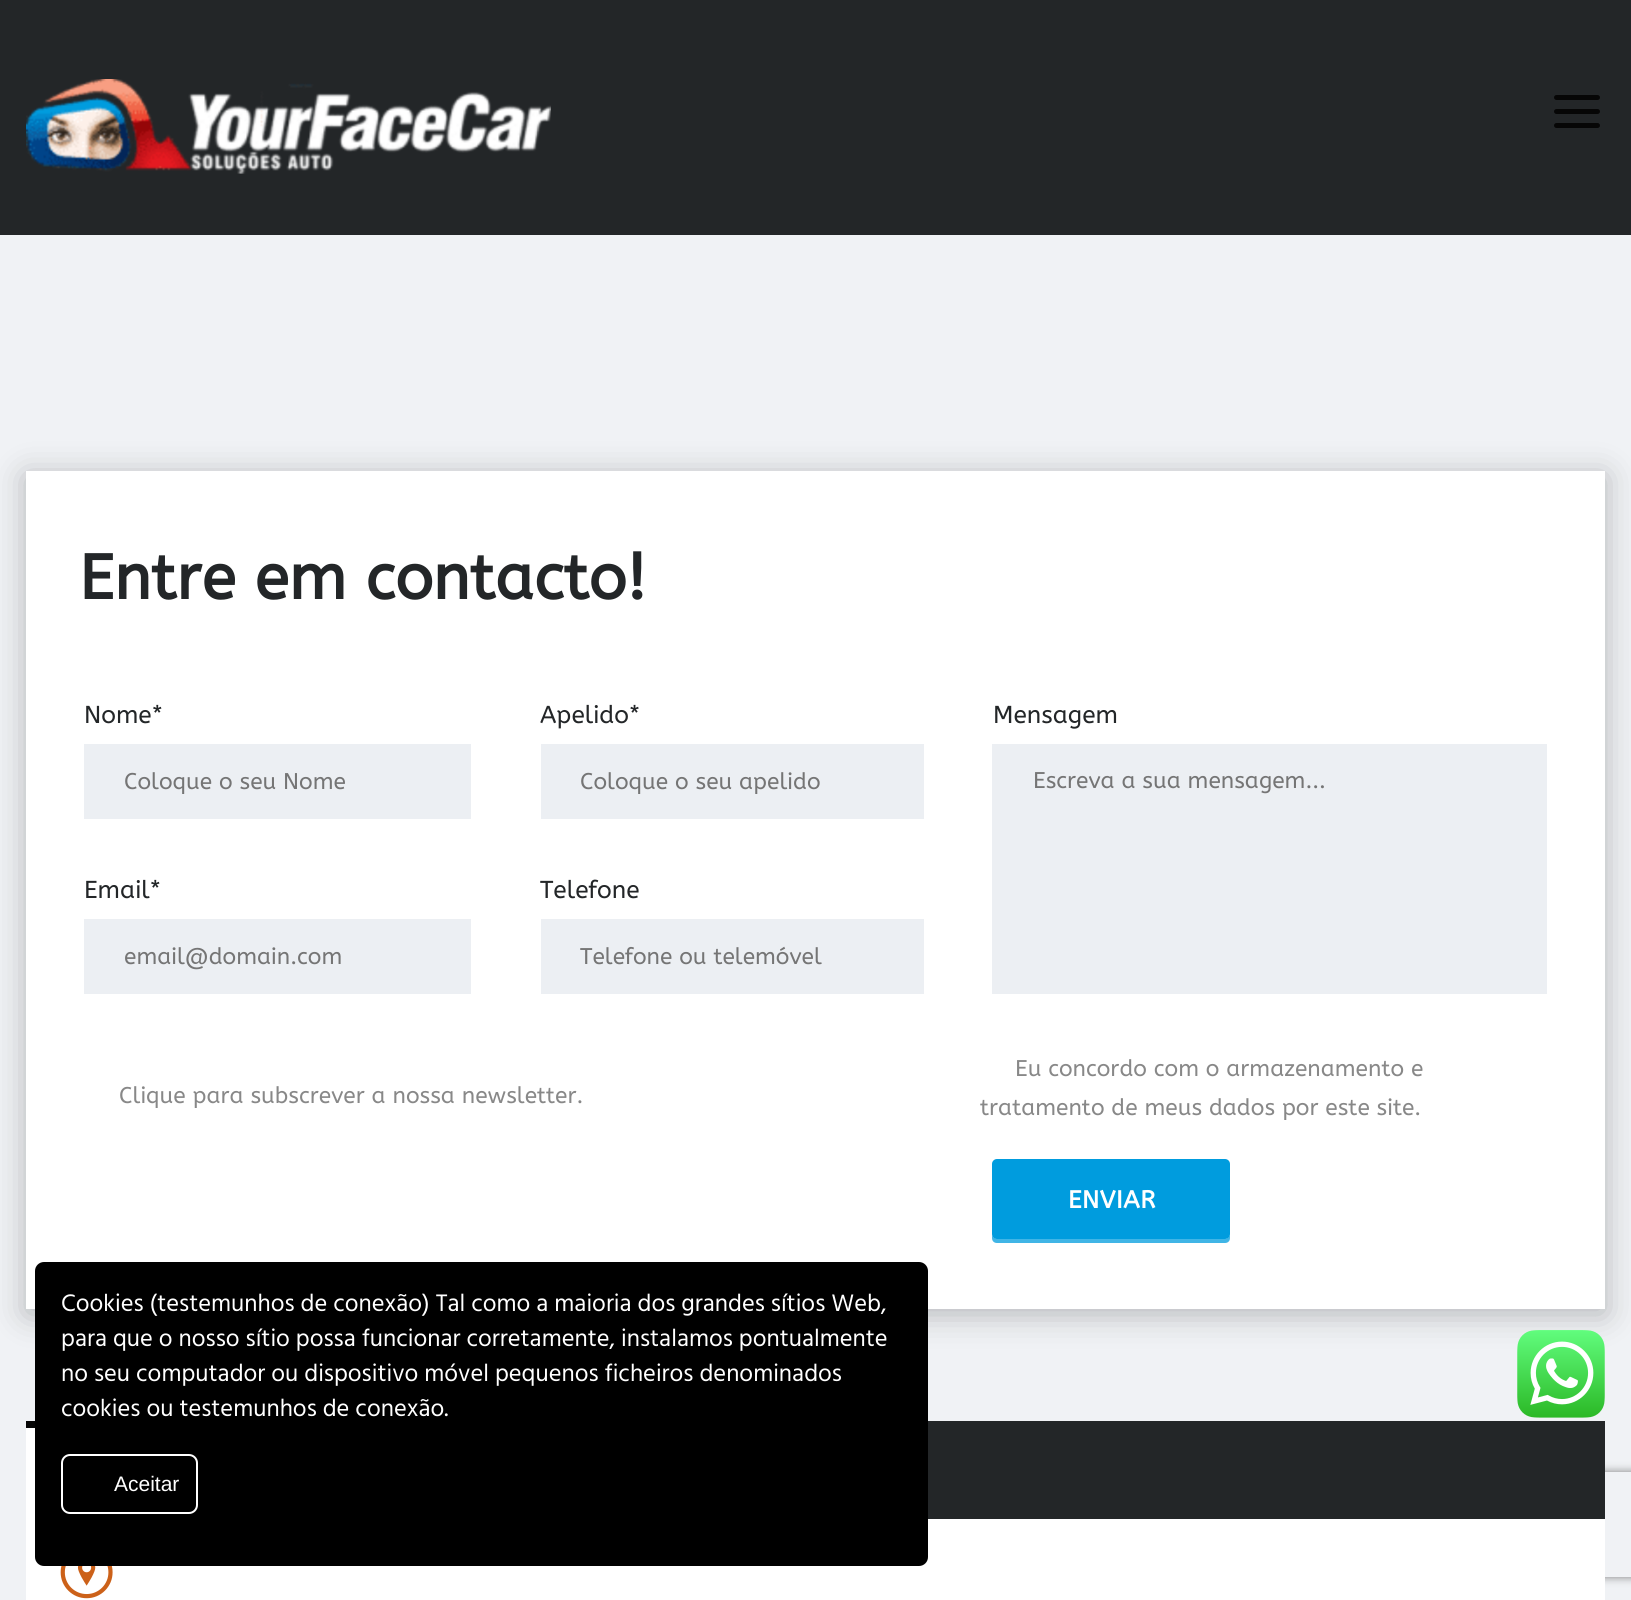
import math
import cairo


def use_color(cr, r, g, b):
  cr.set_source_rgb(r / 255, g / 255, b / 255)

def text(cr, x, y, s, family, size, color, bold=False, italic=False):
  cr.select_font_face(family, cairo.FONT_SLANT_ITALIC if italic else cairo.FONT_SLANT_NORMAL, cairo.FONT_WEIGHT_BOLD if bold else cairo.FONT_WEIGHT_NORMAL)
  cr.set_font_size(size)
  use_color(cr, *color)
  cr.move_to(x, y)
  cr.show_text(s)

def spaced_text(cr, x, y, s, letter, word):
  cr.move_to(x, y)
  for ch in s:
    cr.show_text(ch)
    cr.rel_move_to(letter + word * (ch == ' '), 0)

def box(cr, x, y, w, h, *color):
  use_color(cr, *color)
  cr.rectangle(x, y, w, h)
  cr.fill()

def round_rect(cr, x, y, w, h, r):
  cr.new_sub_path()
  for i, (u, v) in enumerate([(x + w - r, y + h - r), (x + r, y + h - r), (x + r, y + r), (x + w - r, y + r)]):
    cr.arc(u, v, r, i * math.pi / 2, (i + 1) * math.pi / 2)
  cr.close_path()

def shadow(cr, x, y, w, h, r, blur, alpha):
  cr.push_group_with_content(cairo.CONTENT_ALPHA)
  cr.set_operator(cairo.OPERATOR_SOURCE)
  for i in range(15, -16, -2):
    e = blur * i / 6
    if min(w, h) + 2 * e > 0:
      cr.set_source_rgba(0, 0, 0, alpha * math.erfc((i - 1) / 8.5) / 2)
      round_rect(cr, x - e, y - e, w + 2 * e, h + 2 * e, max(0, min(r + e + blur * .6, min(w, h) / 2 + e)))
      cr.fill()
  cr.mask(cr.pop_group())

def picture(cr, path, x, y, w, h):
  cr.save()
  cr.set_source_surface(cairo.ImageSurface.create_from_png(path), x, y)
  cr.rectangle(x, y, w, h)
  cr.fill()
  cr.restore()

def draw(cr):
  use_color(cr, 240, 242, 245)
  cr.paint()
  box(cr, 0, 0, 1631, 235, 35, 38, 40)
  picture(cr, "img_01.png", 26, 79, 525, 95)
  use_color(cr, 6, 6, 6)
  round_rect(cr, 1554, 95, 46, 5, 2.5)
  cr.fill()
  round_rect(cr, 1554, 109, 46, 5, 2.5)
  cr.fill()
  round_rect(cr, 1554, 123, 46, 5, 2.5)
  cr.fill()
  use_color(cr, 35, 38, 40)
  shadow(cr, 26, 476, 1579, 838, 0, 16, 0.3)
  box(cr, 26, 471, 1579, 838, 255, 255, 255)
  box(cr, 84, 744, 387, 75, 236, 239, 243)
  box(cr, 541, 744, 383, 75, 236, 239, 243)
  box(cr, 84, 919, 387, 75, 236, 239, 243)
  box(cr, 541, 919, 383, 75, 236, 239, 243)
  box(cr, 992, 744, 555, 250, 236, 239, 243)
  use_color(cr, 64, 181, 230)
  cr.new_path()
  cr.move_to(992, 1165)
  cr.line_to(992, 1238)
  cr.curve_to(992, 1241, 994, 1243, 997, 1243)
  cr.line_to(1225, 1243)
  cr.curve_to(1228, 1243, 1230, 1241, 1230, 1238)
  cr.line_to(1230, 1235)
  cr.curve_to(1229, 1237, 1227, 1239, 1225, 1239)
  cr.line_to(998, 1239)
  cr.curve_to(995, 1239, 992, 1237, 992, 1234)
  cr.close_path()
  cr.fill()
  use_color(cr, 0, 156, 222)
  round_rect(cr, 992, 1159, 238, 80, 5)
  cr.fill()
  cr.save()
  cr.set_fill_rule(cairo.FILL_RULE_EVEN_ODD)
  cr.new_path()
  cr.move_to(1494, 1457)
  cr.line_to(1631, 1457)
  cr.line_to(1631, 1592)
  cr.line_to(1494, 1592)
  cr.close_path()
  cr.move_to(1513, 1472)
  cr.line_to(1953, 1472)
  cr.curve_to(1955, 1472, 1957, 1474, 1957, 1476)
  cr.line_to(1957, 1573)
  cr.curve_to(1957, 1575, 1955, 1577, 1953, 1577)
  cr.line_to(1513, 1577)
  cr.curve_to(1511, 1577, 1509, 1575, 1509, 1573)
  cr.line_to(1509, 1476)
  cr.curve_to(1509, 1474, 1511, 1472, 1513, 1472)
  cr.close_path()
  cr.clip()
  use_color(cr, 128, 128, 128)
  shadow(cr, 1509, 1472, 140, 105, 4, 4.5, 1)
  cr.restore()
  box(cr, 26, 1519, 1579, 81, 255, 255, 255)
  box(cr, 928, 1421, 677, 98, 35, 38, 40)
  use_color(cr, 6, 6, 6)
  cr.new_path()
  cr.move_to(26, 1421)
  cr.line_to(26, 1512)
  cr.line_to(26, 1428)
  cr.line_to(210, 1428)
  cr.line_to(210, 1421)
  cr.close_path()
  cr.fill()
  box(cr, 26, 1428, 9, 91, 255, 255, 255)
  picture(cr, "img_02.png", 60, 1566, 53, 33)
  use_color(cr, 0, 0, 0)
  round_rect(cr, 35, 1262, 893, 304, 9)
  cr.fill()
  round_rect(cr, 62, 1455, 135, 58, 8)
  use_color(cr, 255, 255, 255)
  cr.stroke()
  picture(cr, "img_03.png", 1517, 1330, 88, 88)
  text(cr, 79, 599, "Entre em contacto!", "ABeeZee", 63, (35, 38, 40), bold=True)
  text(cr, 84, 723, "Nome*", "ABeeZee", 24.5, (35, 38, 40))
  text(cr, 124, 789, "Coloque o seu Nome", "ABeeZee", 22.75, (117, 117, 117))
  text(cr, 540, 723, "Apelido*", "ABeeZee", 24.5, (35, 38, 40))
  text(cr, 580, 789, "Coloque o seu apelido", "ABeeZee", 22.75, (117, 117, 117))
  text(cr, 84, 898, "Email*", "ABeeZee", 24.5, (35, 38, 40))
  text(cr, 124, 964, "email@domain.com", "ABeeZee", 22.75, (117, 117, 117))
  text(cr, 540, 898, "Telefone", "ABeeZee", 24.5, (35, 38, 40))
  text(cr, 580, 964, "Telefone ou telemóvel", "ABeeZee", 22.75, (117, 117, 117))
  text(cr, 119, 1103, "Clique para subscrever a nossa newsletter.", "ABeeZee", 22.75, (136, 136, 136))
  text(cr, 993, 723, "Mensagem", "ABeeZee", 24.5, (35, 38, 40))
  text(cr, 1033, 788, "Escreva a sua mensagem...", "ABeeZee", 22.75, (117, 117, 117))
  text(cr, 1015, 1076, "Eu concordo com o armazenamento e", "ABeeZee", 22.75, (136, 136, 136))
  text(cr, 980, 1115, "tratamento de meus dados por este site.", "ABeeZee", 22.75, (136, 136, 136))
  cr.select_font_face("ABeeZee", cairo.FONT_SLANT_NORMAL, cairo.FONT_WEIGHT_BOLD)
  cr.set_font_size(24.5)
  use_color(cr, 255, 255, 255)
  spaced_text(cr, 1068, 1208, "ENVIAR", 0.5, 0)
  text(cr, 61, 1311, "Cookies (testemunhos de conexão) Tal como a maioria dos grandes sítios Web,", "Hind", 24.5, (255, 255, 255))
  text(cr, 61, 1346, "para que o nosso sítio possa funcionar corretamente, instalamos pontualmente", "Hind", 24.5, (255, 255, 255))
  text(cr, 61, 1381, "no seu computador ou dispositivo móvel pequenos ficheiros denominados", "Hind", 24.5, (255, 255, 255))
  text(cr, 61, 1416, "cookies ou testemunhos de conexão.", "Hind", 24.5, (255, 255, 255))
  text(cr, 114, 1491, "Aceitar", "Liberation Sans", 21, (255, 255, 255))


surface = cairo.ImageSurface(cairo.FORMAT_RGB24, 1631, 1600)
cr = cairo.Context(surface)
options = cairo.FontOptions()
options.set_hint_metrics(cairo.HINT_METRICS_OFF)
options.set_hint_style(cairo.HINT_STYLE_NONE)
cr.set_font_options(options)
cr.set_miter_limit(4)
draw(cr)
surface.write_to_png("out.png")
